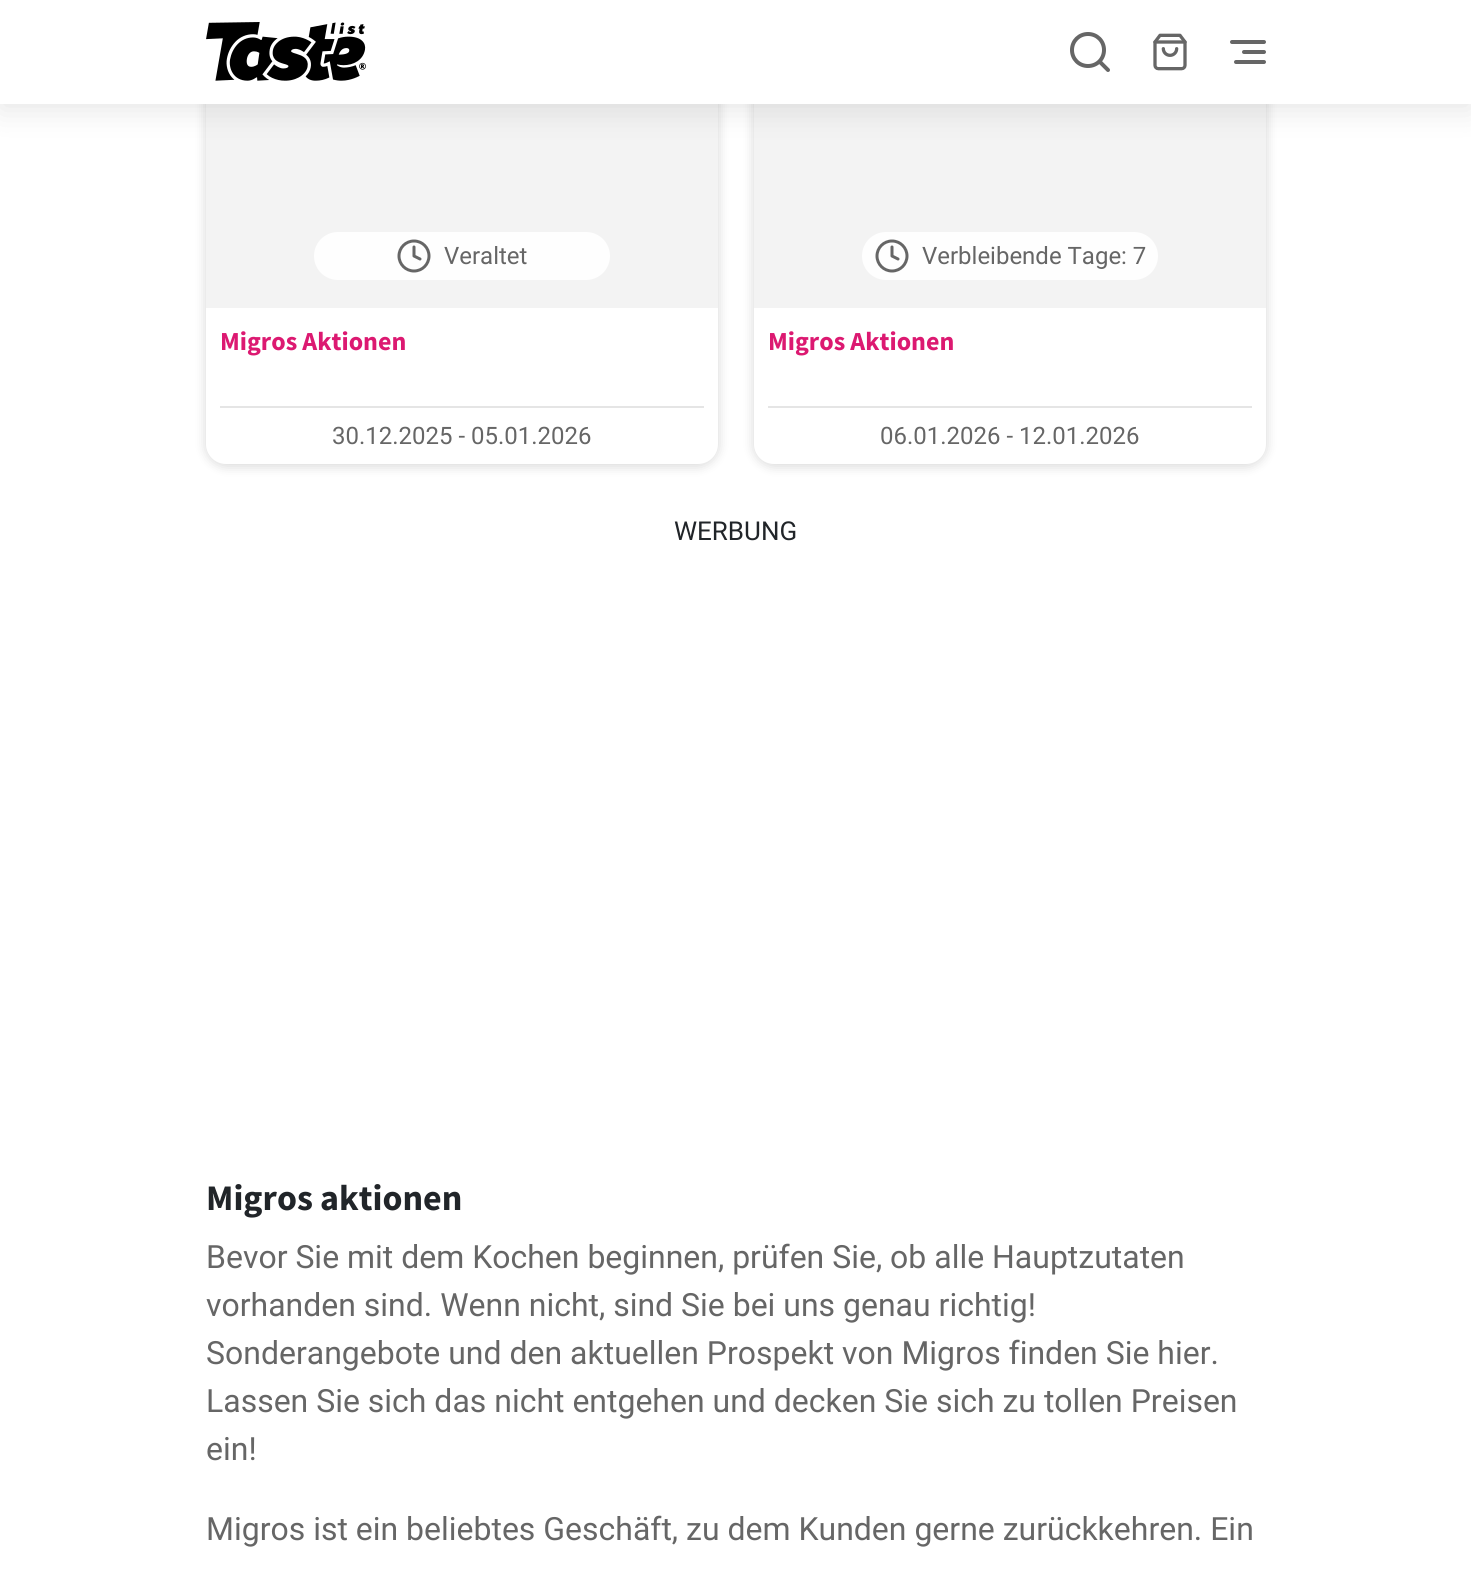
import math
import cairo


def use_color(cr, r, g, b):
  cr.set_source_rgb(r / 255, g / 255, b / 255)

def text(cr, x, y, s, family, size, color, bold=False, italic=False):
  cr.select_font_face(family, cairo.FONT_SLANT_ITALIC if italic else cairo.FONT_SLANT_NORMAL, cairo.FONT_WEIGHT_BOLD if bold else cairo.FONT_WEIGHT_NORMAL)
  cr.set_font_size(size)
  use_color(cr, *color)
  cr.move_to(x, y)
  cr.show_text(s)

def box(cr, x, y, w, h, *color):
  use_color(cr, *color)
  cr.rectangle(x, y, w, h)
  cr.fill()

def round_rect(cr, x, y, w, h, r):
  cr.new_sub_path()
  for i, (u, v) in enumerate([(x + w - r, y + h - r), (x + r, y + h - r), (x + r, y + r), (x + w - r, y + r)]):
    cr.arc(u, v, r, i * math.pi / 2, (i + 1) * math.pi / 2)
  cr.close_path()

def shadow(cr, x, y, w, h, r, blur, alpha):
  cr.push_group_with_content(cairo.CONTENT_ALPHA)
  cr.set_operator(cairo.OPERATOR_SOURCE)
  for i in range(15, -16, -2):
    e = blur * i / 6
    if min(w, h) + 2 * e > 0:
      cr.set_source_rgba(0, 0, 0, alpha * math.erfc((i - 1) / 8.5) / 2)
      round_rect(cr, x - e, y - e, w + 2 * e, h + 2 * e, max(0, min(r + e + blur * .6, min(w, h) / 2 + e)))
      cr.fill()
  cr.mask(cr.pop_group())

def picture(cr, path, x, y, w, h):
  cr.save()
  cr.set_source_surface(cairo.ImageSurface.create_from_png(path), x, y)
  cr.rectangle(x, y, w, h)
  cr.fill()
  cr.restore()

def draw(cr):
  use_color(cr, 255, 255, 255)
  cr.paint()
  use_color(cr, 0, 0, 0)
  shadow(cr, 206, -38, 512, 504, 20, 6, 0.16)
  use_color(cr, 255, 255, 255)
  round_rect(cr, 206, -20, 512, 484, 20)
  cr.fill()
  box(cr, 206, 104, 512, 204, 243, 243, 243)
  use_color(cr, 0, 0, 0)
  shadow(cr, 754, -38, 512, 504, 20, 6, 0.16)
  use_color(cr, 255, 255, 255)
  round_rect(cr, 754, -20, 512, 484, 20)
  cr.fill()
  box(cr, 754, 104, 512, 204, 243, 243, 243)
  use_color(cr, 0, 0, 0)
  shadow(cr, 0, 6, 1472, 104, 0, 15, 0.1)
  box(cr, 0, 0, 1471, 104, 255, 255, 255)
  picture(cr, "img_01.png", 206, 22, 160, 59)
  cr.new_path()
  cr.move_to(1104, 50)
  cr.curve_to(1104, 59, 1097, 66, 1088, 66)
  cr.curve_to(1079, 66, 1072, 59, 1072, 50)
  cr.curve_to(1072, 41, 1079, 34, 1088, 34)
  cr.curve_to(1097, 34, 1104, 41, 1104, 50)
  cr.close_path()
  cr.move_to(1108, 70)
  cr.line_to(1099.5, 61.5)
  use_color(cr, 102, 102, 102)
  cr.set_line_width(4)
  cr.set_line_cap(cairo.LINE_CAP_ROUND)
  cr.set_line_join(cairo.LINE_JOIN_ROUND)
  cr.stroke()
  picture(cr, "img_02.png", 1153, 33, 34, 38)
  cr.new_path()
  cr.move_to(1244, 52)
  cr.line_to(1264, 52)
  cr.move_to(1232, 42)
  cr.line_to(1264, 42)
  cr.move_to(1236, 62)
  cr.line_to(1264, 62)
  cr.stroke()
  use_color(cr, 254, 254, 254)
  round_rect(cr, 314, 232, 296, 48, 24)
  cr.fill()
  cr.arc(414, 256, 15, 0, 2 * math.pi)
  use_color(cr, 102, 102, 102)
  cr.set_line_width(3)
  cr.set_line_cap(cairo.LINE_CAP_BUTT)
  cr.set_line_join(cairo.LINE_JOIN_MITER)
  cr.stroke()
  cr.new_path()
  cr.move_to(414, 247)
  cr.line_to(414, 256)
  cr.line_to(420, 259)
  cr.set_line_cap(cairo.LINE_CAP_ROUND)
  cr.set_line_join(cairo.LINE_JOIN_ROUND)
  cr.stroke()
  box(cr, 220, 406, 484, 2, 229, 229, 229)
  use_color(cr, 254, 254, 254)
  round_rect(cr, 862, 232, 296, 48, 24)
  cr.fill()
  cr.arc(892, 256, 15, 0, 2 * math.pi)
  use_color(cr, 102, 102, 102)
  cr.set_line_cap(cairo.LINE_CAP_BUTT)
  cr.set_line_join(cairo.LINE_JOIN_MITER)
  cr.stroke()
  cr.new_path()
  cr.move_to(892, 247)
  cr.line_to(892, 256)
  cr.line_to(898, 259)
  cr.set_line_cap(cairo.LINE_CAP_ROUND)
  cr.set_line_join(cairo.LINE_JOIN_ROUND)
  cr.stroke()
  box(cr, 768, 406, 484, 2, 229, 229, 229)
  text(cr, 444, 264, "Veraltet", "Roboto", 24, (102, 102, 102))
  text(cr, 220, 350, "Migros Aktionen", "Source Sans Pro", 26, (220, 25, 113), bold=True)
  text(cr, 332, 444, "30.12.2025 - 05.01.2026", "Roboto", 24, (102, 102, 102))
  text(cr, 922, 264, "Verbleibende Tage: 7", "Roboto", 24, (102, 102, 102))
  text(cr, 768, 350, "Migros Aktionen", "Source Sans Pro", 26, (220, 25, 113), bold=True)
  text(cr, 880, 444, "06.01.2026 - 12.01.2026", "Roboto", 24, (102, 102, 102))
  text(cr, 674, 540, "WERBUNG", "Roboto", 26, (33, 37, 41))
  text(cr, 206, 1210, "Migros aktionen", "Source Sans Pro", 36, (33, 37, 41), bold=True)
  text(cr, 206, 1268, "Bevor Sie mit dem Kochen beginnen, prüfen Sie, ob alle Hauptzutaten", "Roboto", 32, (102, 102, 102))
  text(cr, 206, 1316, "vorhanden sind. Wenn nicht, sind Sie bei uns genau richtig!", "Roboto", 32, (102, 102, 102))
  text(cr, 206, 1364, "Sonderangebote und den aktuellen Prospekt von Migros finden Sie hier.", "Roboto", 32, (102, 102, 102))
  text(cr, 206, 1412, "Lassen Sie sich das nicht entgehen und decken Sie sich zu tollen Preisen", "Roboto", 32, (102, 102, 102))
  text(cr, 206, 1460, "ein!", "Roboto", 32, (102, 102, 102))
  text(cr, 206, 1540, "Migros ist ein beliebtes Geschäft, zu dem Kunden gerne zurückkehren. Ein", "Roboto", 32, (102, 102, 102))


surface = cairo.ImageSurface(cairo.FORMAT_RGB24, 1471, 1572)
cr = cairo.Context(surface)
options = cairo.FontOptions()
options.set_hint_metrics(cairo.HINT_METRICS_OFF)
options.set_hint_style(cairo.HINT_STYLE_NONE)
cr.set_font_options(options)
cr.set_miter_limit(4)
draw(cr)
surface.write_to_png("out.png")
